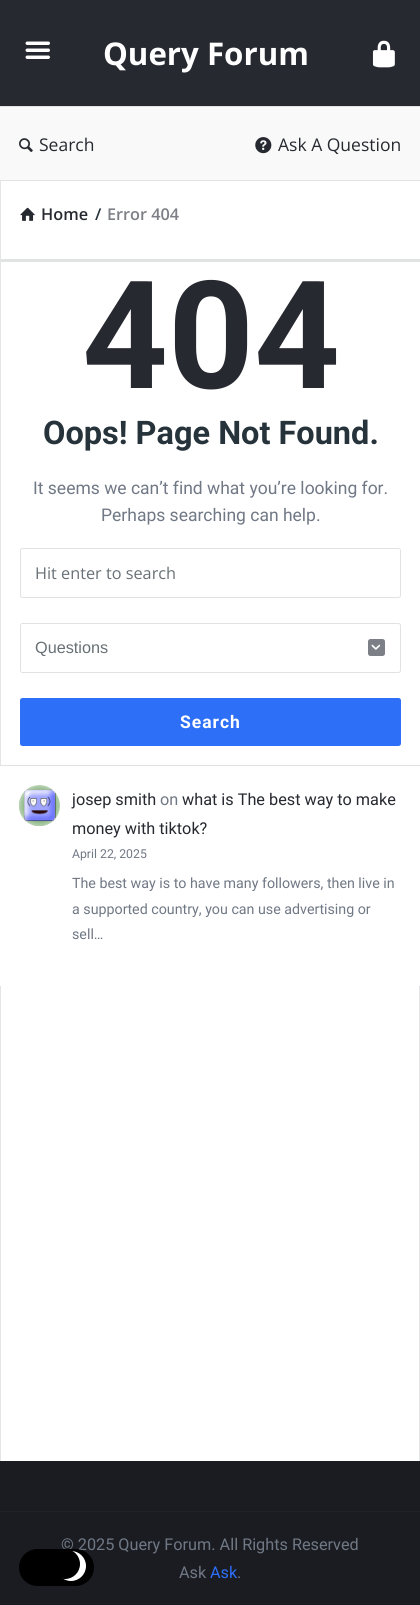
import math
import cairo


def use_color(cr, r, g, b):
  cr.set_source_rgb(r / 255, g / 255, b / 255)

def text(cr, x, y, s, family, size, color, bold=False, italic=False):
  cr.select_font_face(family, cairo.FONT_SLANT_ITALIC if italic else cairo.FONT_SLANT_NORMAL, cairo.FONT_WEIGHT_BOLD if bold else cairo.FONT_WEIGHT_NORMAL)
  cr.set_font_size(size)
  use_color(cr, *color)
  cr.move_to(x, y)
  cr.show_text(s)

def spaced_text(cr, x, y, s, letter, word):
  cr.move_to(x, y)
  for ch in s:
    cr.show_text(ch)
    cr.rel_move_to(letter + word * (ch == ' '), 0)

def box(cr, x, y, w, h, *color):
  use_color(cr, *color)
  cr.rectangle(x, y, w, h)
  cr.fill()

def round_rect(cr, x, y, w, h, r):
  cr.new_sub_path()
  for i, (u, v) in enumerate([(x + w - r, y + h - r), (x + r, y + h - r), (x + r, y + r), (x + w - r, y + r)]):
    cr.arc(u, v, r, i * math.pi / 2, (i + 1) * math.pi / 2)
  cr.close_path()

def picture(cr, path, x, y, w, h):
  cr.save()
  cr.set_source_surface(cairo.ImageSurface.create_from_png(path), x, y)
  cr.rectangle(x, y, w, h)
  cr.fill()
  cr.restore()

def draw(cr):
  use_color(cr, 26, 28, 33)
  cr.paint()
  box(cr, 0, 0, 420, 106, 39, 41, 48)
  picture(cr, "img_01.png", 25, 41, 25, 18)
  picture(cr, "img_02.png", 372, 40, 23, 28)
  box(cr, 0, 107, 420, 73, 249, 249, 249)
  box(cr, 0, 106, 420, 1, 225, 227, 227)
  box(cr, 0, 180, 420, 1, 225, 227, 227)
  picture(cr, "img_03.png", 19, 138, 14, 14)
  picture(cr, "img_04.png", 255, 137, 17, 17)
  box(cr, 1, 181, 419, 584, 255, 255, 255)
  box(cr, 0, 181, 1, 584, 228, 229, 230)
  box(cr, 1, 259, 419, 3, 225, 227, 227)
  picture(cr, "img_05.png", 20, 207, 15, 14)
  round_rect(cr, 20.5, 548.5, 380, 49, 2)
  cr.set_line_width(1)
  cr.stroke()
  round_rect(cr, 20.5, 623.5, 380, 49, 2)
  cr.stroke()
  use_color(cr, 124, 127, 133)
  round_rect(cr, 368, 639, 17, 17, 2.5)
  cr.fill()
  picture(cr, "img_06.png", 371, 644, 10, 6)
  use_color(cr, 45, 111, 247)
  round_rect(cr, 20, 698, 381, 48, 2.5)
  cr.fill()
  box(cr, 0, 765, 420, 1, 225, 227, 227)
  box(cr, 0, 766, 420, 220, 255, 255, 255)
  picture(cr, "img_07.png", 18, 785, 42, 42)
  box(cr, 1, 986, 418, 475, 255, 255, 255)
  box(cr, 419, 986, 1, 475, 228, 229, 230)
  box(cr, 0, 986, 1, 475, 228, 229, 230)
  box(cr, 0, 1511, 420, 1, 33, 35, 40)
  text(cr, 103, 65, "Query Forum", "Open Sans", 31.25, (255, 255, 255), bold=True)
  text(cr, 39, 151, "Search", "Open Sans", 17.5, (39, 41, 48))
  text(cr, 278, 151, "Ask A Question", "Open Sans", 17.5, (39, 41, 48))
  text(cr, 41, 220, "Home", "Open Sans SemiBold", 16.25, (39, 41, 48))
  text(cr, 95, 220, "/", "Open Sans SemiBold", 16.25, (38, 51, 59))
  text(cr, 107, 220, "Error 404", "Open Sans SemiBold", 16.25, (124, 127, 133))
  text(cr, 82, 388, "404", "Roboto", 150, (39, 41, 48), bold=True)
  text(cr, 43, 444, "Oops! Page Not Found.", "Roboto", 32.5, (38, 51, 59), bold=True)
  text(cr, 33, 494, "It seems we can’t find what you’re looking for.", "Roboto", 17.5, (112, 120, 133))
  text(cr, 101, 521, "Perhaps searching can help.", "Roboto", 17.5, (112, 120, 133))
  text(cr, 35, 579, "Hit enter to search", "Open Sans", 16.25, (103, 112, 117))
  text(cr, 35, 653, "Questions", "Liberation Sans", 16.25, (103, 112, 117))
  cr.select_font_face("Roboto", cairo.FONT_SLANT_NORMAL, cairo.FONT_WEIGHT_BOLD)
  cr.set_font_size(17.5)
  use_color(cr, 255, 255, 255)
  spaced_text(cr, 180, 728, "Search", 1, 0)
  text(cr, 72, 805, "josep smith", "Roboto", 16.25, (39, 41, 48))
  text(cr, 160, 805, "on", "Roboto", 16.25, (112, 120, 133))
  text(cr, 182, 805, "what is The best way to make", "Roboto", 16.25, (39, 41, 48))
  text(cr, 72, 834, "money with tiktok?", "Roboto", 16.25, (39, 41, 48))
  text(cr, 72, 858, "April 22, 2025", "Roboto", 12.25, (112, 120, 133))
  text(cr, 72, 888, "The best way is to have many followers, then live in", "Roboto", 14.25, (112, 120, 133))
  text(cr, 72, 914, "a supported country, you can use advertising or", "Roboto", 14.25, (112, 120, 133))
  text(cr, 72, 939, "sell…", "Roboto", 14.25, (112, 120, 133))
  text(cr, 61, 1550, "© 2025 Query Forum. All Rights Reserved", "Roboto", 16.25, (112, 120, 133))
  text(cr, 179, 1578, "Ask", "Roboto", 16.25, (112, 120, 133))
  text(cr, 210, 1578, "Ask", "Roboto", 16.25, (45, 111, 247))
  text(cr, 237, 1578, ".", "Roboto", 16.25, (112, 120, 133))
  use_color(cr, 0, 0, 0)
  round_rect(cr, 19, 1549, 75, 37, 18.5)
  cr.fill()
  use_color(cr, 255, 255, 255)
  cr.arc(71, 1566, 15, 0, 2 * math.pi)
  cr.fill()
  use_color(cr, 0, 0, 0)
  cr.arc(65, 1564, 15, 0, 2 * math.pi)
  cr.fill()


surface = cairo.ImageSurface(cairo.FORMAT_RGB24, 420, 1605)
cr = cairo.Context(surface)
options = cairo.FontOptions()
options.set_hint_metrics(cairo.HINT_METRICS_OFF)
options.set_hint_style(cairo.HINT_STYLE_NONE)
cr.set_font_options(options)
cr.set_miter_limit(4)
draw(cr)
surface.write_to_png("out.png")
